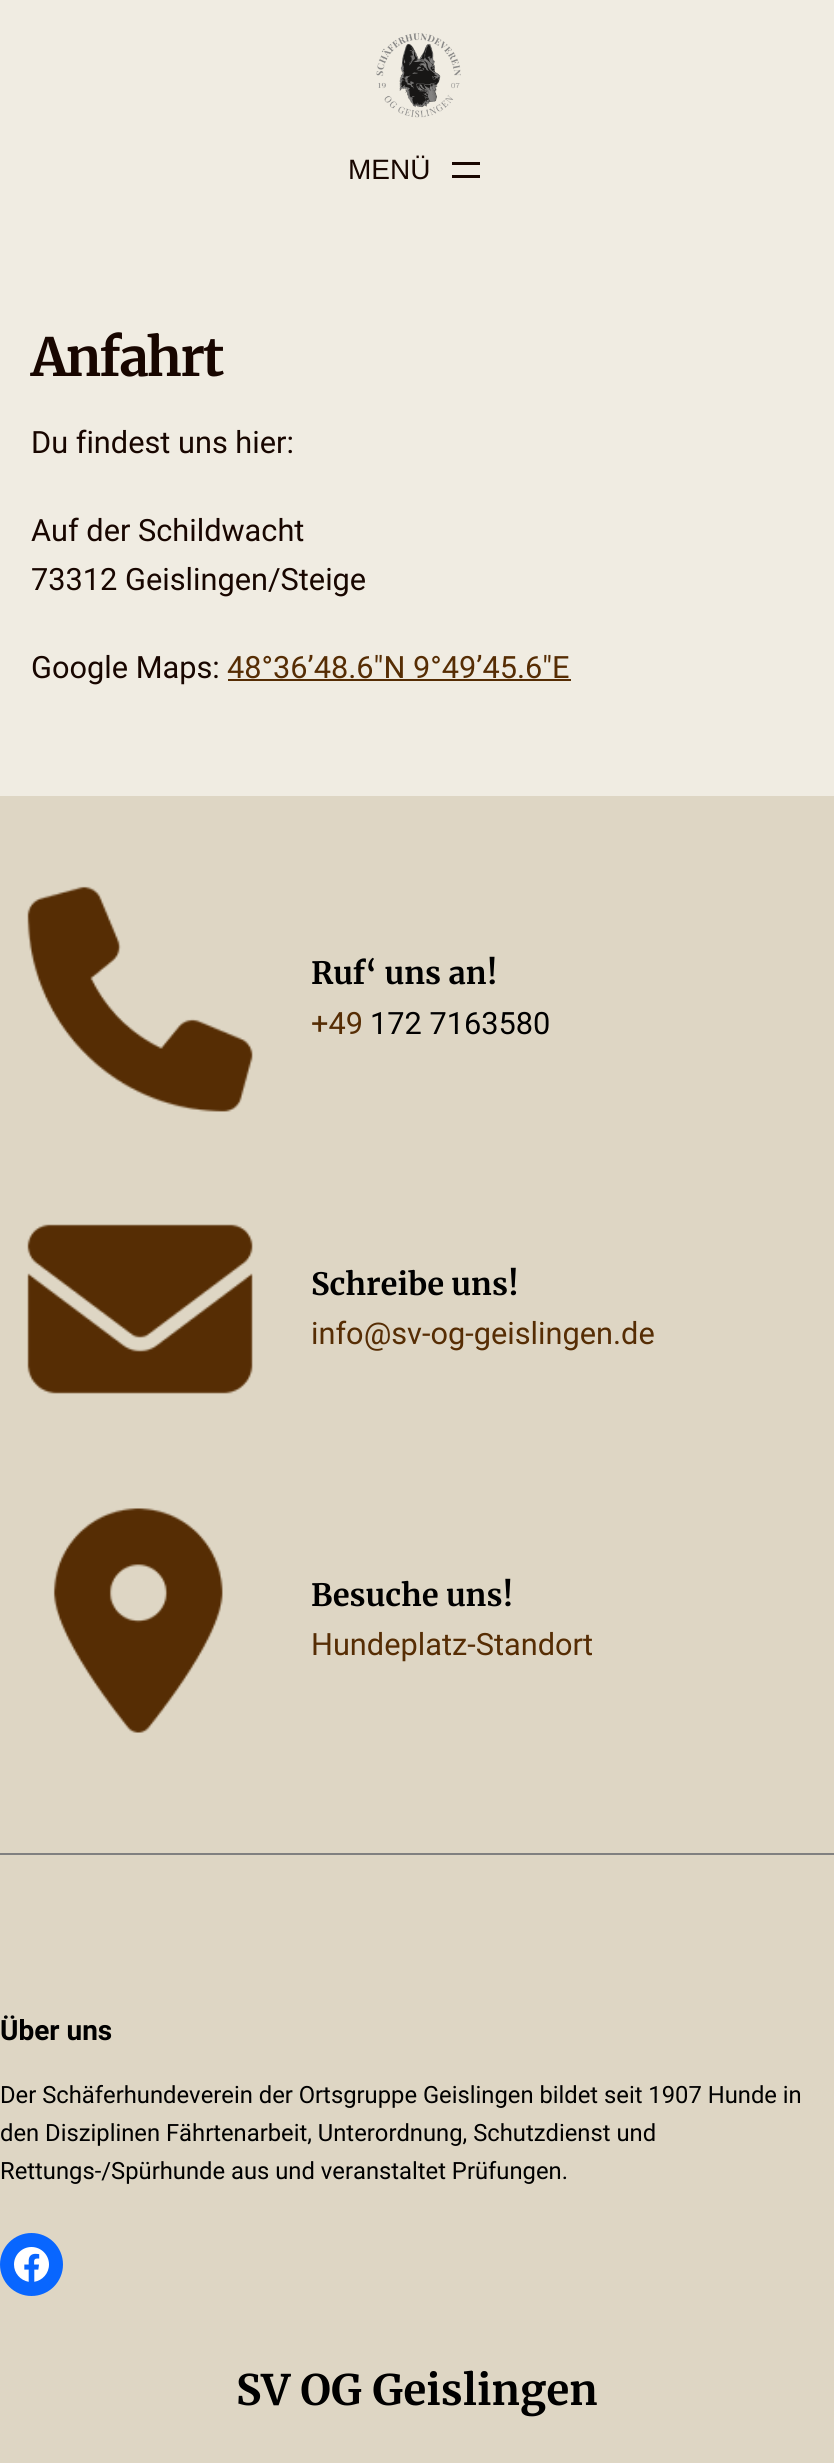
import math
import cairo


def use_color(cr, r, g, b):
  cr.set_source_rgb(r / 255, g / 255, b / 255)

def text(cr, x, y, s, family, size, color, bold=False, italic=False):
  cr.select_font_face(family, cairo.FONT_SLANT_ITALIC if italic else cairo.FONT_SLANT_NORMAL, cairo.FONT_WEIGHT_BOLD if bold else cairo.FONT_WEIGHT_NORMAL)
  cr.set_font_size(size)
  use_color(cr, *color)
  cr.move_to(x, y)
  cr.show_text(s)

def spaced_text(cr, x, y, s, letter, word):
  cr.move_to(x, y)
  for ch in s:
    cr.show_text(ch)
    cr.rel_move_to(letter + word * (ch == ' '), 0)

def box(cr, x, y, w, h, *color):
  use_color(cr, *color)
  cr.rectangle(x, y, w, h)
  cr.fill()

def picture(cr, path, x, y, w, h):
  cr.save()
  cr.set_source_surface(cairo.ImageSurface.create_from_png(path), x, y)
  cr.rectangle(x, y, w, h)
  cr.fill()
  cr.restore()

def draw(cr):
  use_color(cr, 240, 236, 226)
  cr.paint()
  picture(cr, "img_01.png", 376, 33, 85, 85)
  box(cr, 452, 162, 28, 3, 24, 6, 0)
  box(cr, 452, 175, 28, 3, 24, 6, 0)
  box(cr, 228, 679, 343, 2, 86, 45, 4)
  box(cr, 0, 796, 834, 1667, 222, 214, 196)
  picture(cr, "img_02.png", 27, 886, 226, 226)
  picture(cr, "img_03.png", 27, 1224, 226, 170)
  picture(cr, "img_04.png", 53, 1508, 170, 225)
  box(cr, 0, 1853, 834, 2, 128, 128, 128)
  use_color(cr, 8, 102, 255)
  cr.arc(31.5, 2264.5, 31.5, 0, 2 * math.pi)
  cr.fill()
  picture(cr, "img_05.png", 14, 2247, 35, 35)
  text(cr, 348, 179, "MENÜ", "Liberation Sans", 28, (24, 6, 0))
  cr.select_font_face("Merriweather", cairo.FONT_SLANT_NORMAL, cairo.FONT_WEIGHT_BOLD)
  cr.set_font_size(52.5)
  spaced_text(cr, 31, 376, "Anfahrt", -2, 0)
  text(cr, 31, 453, "Du findest uns hier:", "Roboto", 30.75, (24, 6, 0))
  text(cr, 31, 541, "Auf der Schildwacht", "Roboto", 30.75, (24, 6, 0))
  text(cr, 31, 590, "73312 Geislingen/Steige", "Roboto", 30.75, (24, 6, 0))
  text(cr, 31, 678, "Google Maps:", "Roboto", 30.75, (24, 6, 0))
  text(cr, 227, 678, "48°36’48.6″N 9°49’45.6″E", "Roboto", 30.75, (86, 45, 4))
  text(cr, 311, 984, "Ruf‘ uns an!", "Merriweather", 30.75, (0, 0, 0), bold=True)
  text(cr, 311, 1034, "+49", "Roboto", 30.75, (86, 45, 4))
  text(cr, 370, 1034, "172 7163580", "Roboto", 30.75, (0, 0, 0))
  text(cr, 311, 1295, "Schreibe uns!", "Merriweather", 30.75, (0, 0, 0), bold=True)
  text(cr, 311, 1344, "info@sv-og-geislingen.de", "Roboto", 30.75, (86, 45, 4))
  text(cr, 311, 1606, "Besuche uns!", "Merriweather", 30.75, (0, 0, 0), bold=True)
  text(cr, 311, 1655, "Hundeplatz-Standort", "Roboto", 30.75, (86, 45, 4))
  text(cr, 0, 2040, "Über uns", "Roboto", 28, (0, 0, 0), bold=True)
  text(cr, 0, 2103, "Der Schäferhundeverein der Ortsgruppe Geislingen bildet seit 1907 Hunde in", "Roboto", 23.8, (0, 0, 0))
  text(cr, 0, 2141, "den Disziplinen Fährtenarbeit, Unterordnung, Schutzdienst und", "Roboto", 23.8, (0, 0, 0))
  text(cr, 0, 2179, "Rettungs-/Spürhunde aus und veranstaltet Prüfungen.", "Roboto", 23.8, (0, 0, 0))
  text(cr, 236, 2405, "SV OG Geislingen", "Merriweather", 42, (0, 0, 0), bold=True)


surface = cairo.ImageSurface(cairo.FORMAT_RGB24, 834, 2463)
cr = cairo.Context(surface)
options = cairo.FontOptions()
options.set_hint_metrics(cairo.HINT_METRICS_OFF)
options.set_hint_style(cairo.HINT_STYLE_NONE)
cr.set_font_options(options)
cr.set_miter_limit(4)
draw(cr)
surface.write_to_png("out.png")
